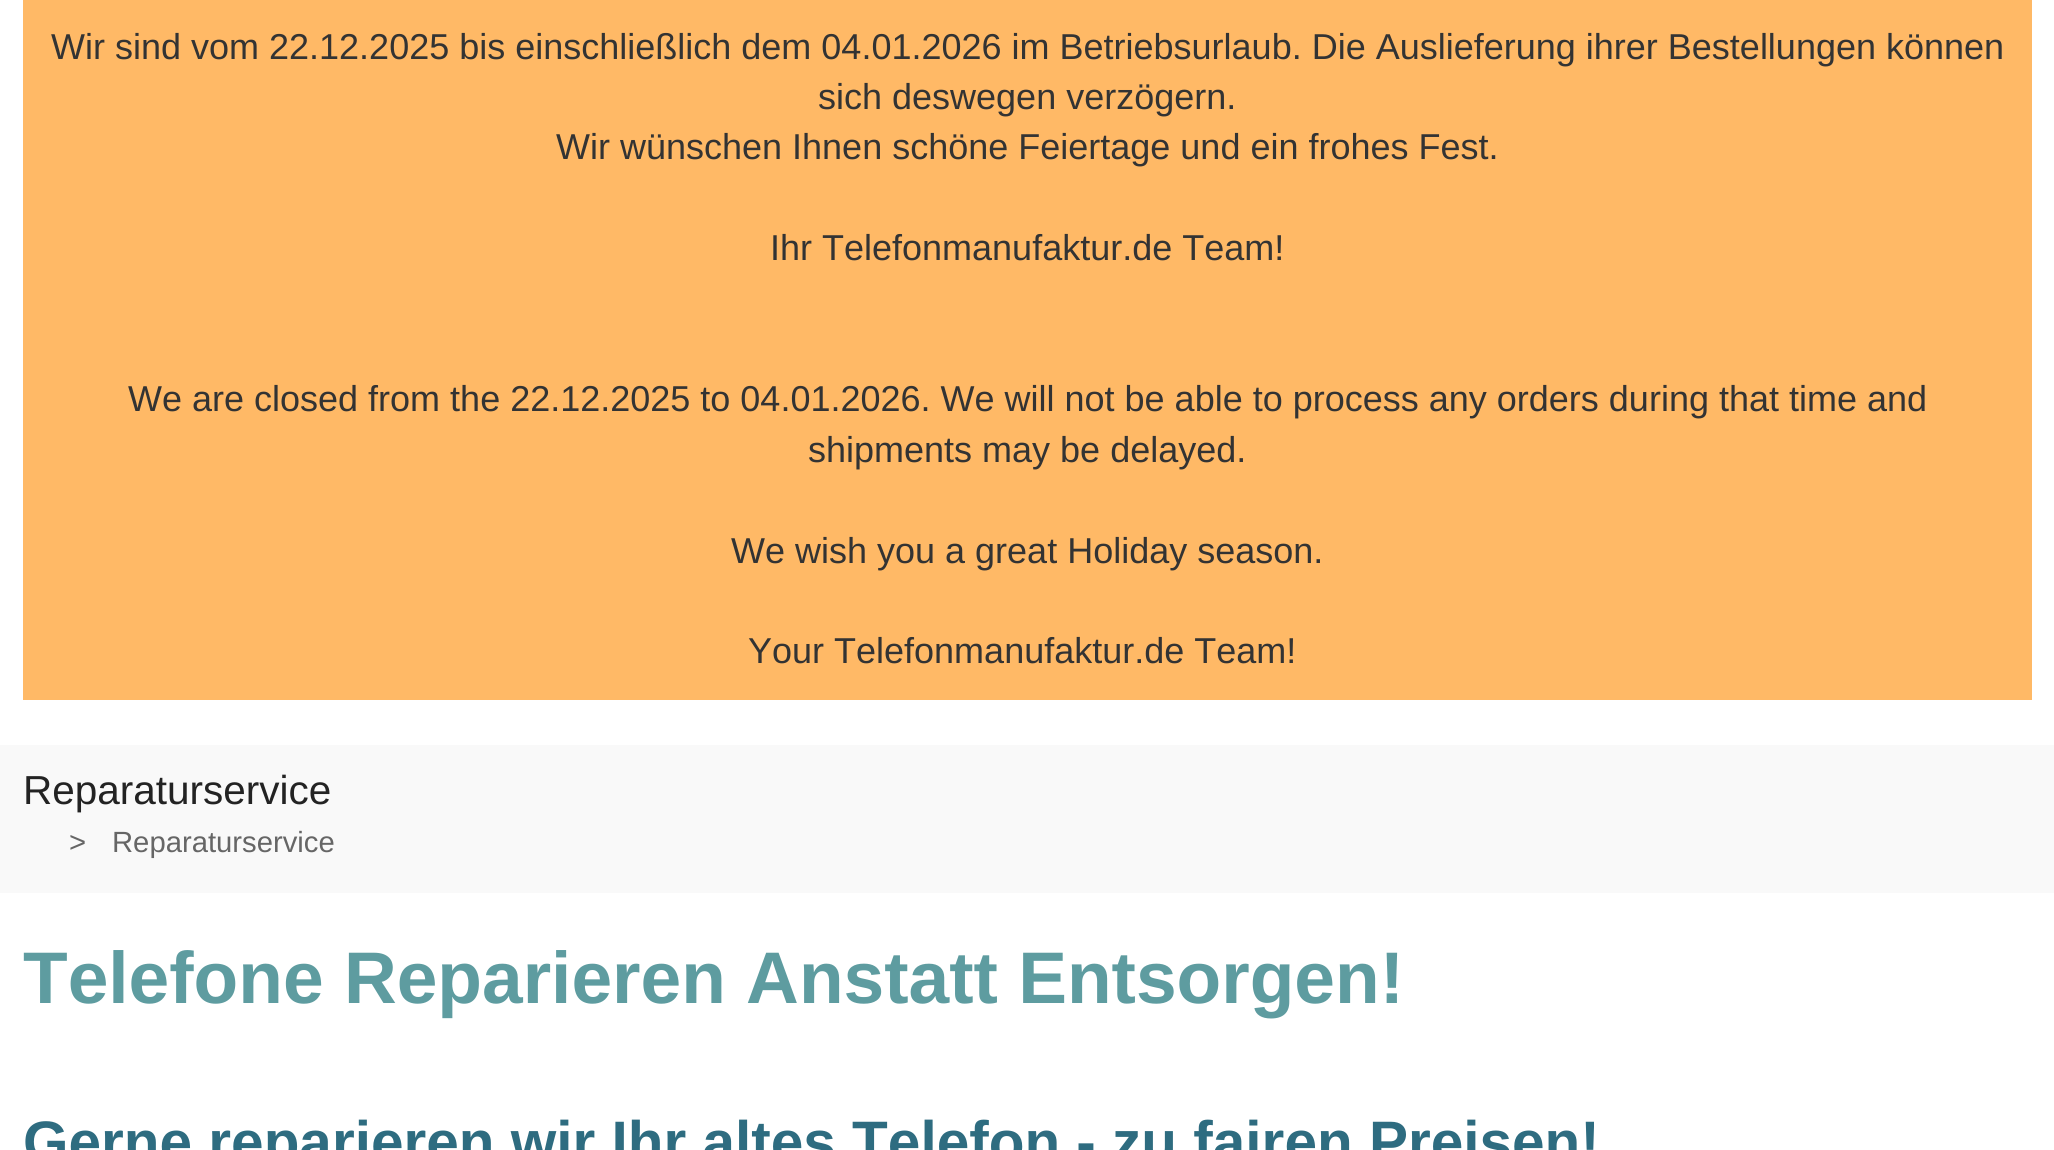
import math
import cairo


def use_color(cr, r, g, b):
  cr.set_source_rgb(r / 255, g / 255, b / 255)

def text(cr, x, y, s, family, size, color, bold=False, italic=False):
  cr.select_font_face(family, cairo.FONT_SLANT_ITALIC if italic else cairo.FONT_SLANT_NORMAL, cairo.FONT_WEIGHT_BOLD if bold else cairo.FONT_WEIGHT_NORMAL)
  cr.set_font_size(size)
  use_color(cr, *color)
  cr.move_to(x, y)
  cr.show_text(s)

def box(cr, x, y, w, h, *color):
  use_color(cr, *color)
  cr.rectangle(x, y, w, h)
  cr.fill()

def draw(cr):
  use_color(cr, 255, 255, 255)
  cr.paint()
  box(cr, 23, 0, 2009, 700, 255, 185, 102)
  box(cr, 0, 745, 2054, 148, 249, 249, 249)
  text(cr, 51, 59, "Wir sind vom 22.12.2025 bis einschließlich dem 04.01.2026 im Betriebsurlaub. Die Auslieferung ihrer Bestellungen können", "Liberation Sans", 36, (51, 51, 51))
  text(cr, 818, 109, "sich deswegen verzögern.", "Liberation Sans", 36, (51, 51, 51))
  text(cr, 556, 159, "Wir wünschen Ihnen schöne Feiertage und ein frohes Fest.", "Liberation Sans", 36, (51, 51, 51))
  text(cr, 770, 260, "Ihr Telefonmanufaktur.de Team!", "Liberation Sans", 36, (51, 51, 51))
  text(cr, 128, 411, "We are closed from the 22.12.2025 to 04.01.2026. We will not be able to process any orders during that time and", "Liberation Sans", 36, (51, 51, 51))
  text(cr, 808, 462, "shipments may be delayed.", "Liberation Sans", 36, (51, 51, 51))
  text(cr, 731, 563, "We wish you a great Holiday season.", "Liberation Sans", 36, (51, 51, 51))
  text(cr, 748, 663, "Your Telefonmanufaktur.de Team!", "Liberation Sans", 36, (51, 51, 51))
  text(cr, 23, 804, "Reparaturservice", "Liberation Sans", 40.5, (35, 35, 35))
  text(cr, 69, 852, ">", "Liberation Sans", 29.25, (102, 102, 102))
  text(cr, 112, 852, "Reparaturservice", "Liberation Sans", 29.25, (102, 102, 102))
  text(cr, 23, 1003, "Telefone Reparieren Anstatt Entsorgen!", "Liberation Sans", 73.1, (94, 156, 160), bold=True)
  text(cr, 23, 1162, "Gerne reparieren wir Ihr altes Telefon - zu fairen Preisen!", "Liberation Sans", 58.5, (46, 108, 128), bold=True)


surface = cairo.ImageSurface(cairo.FORMAT_RGB24, 2054, 1150)
cr = cairo.Context(surface)
options = cairo.FontOptions()
options.set_hint_metrics(cairo.HINT_METRICS_OFF)
options.set_hint_style(cairo.HINT_STYLE_NONE)
cr.set_font_options(options)
cr.set_miter_limit(4)
draw(cr)
surface.write_to_png("out.png")
